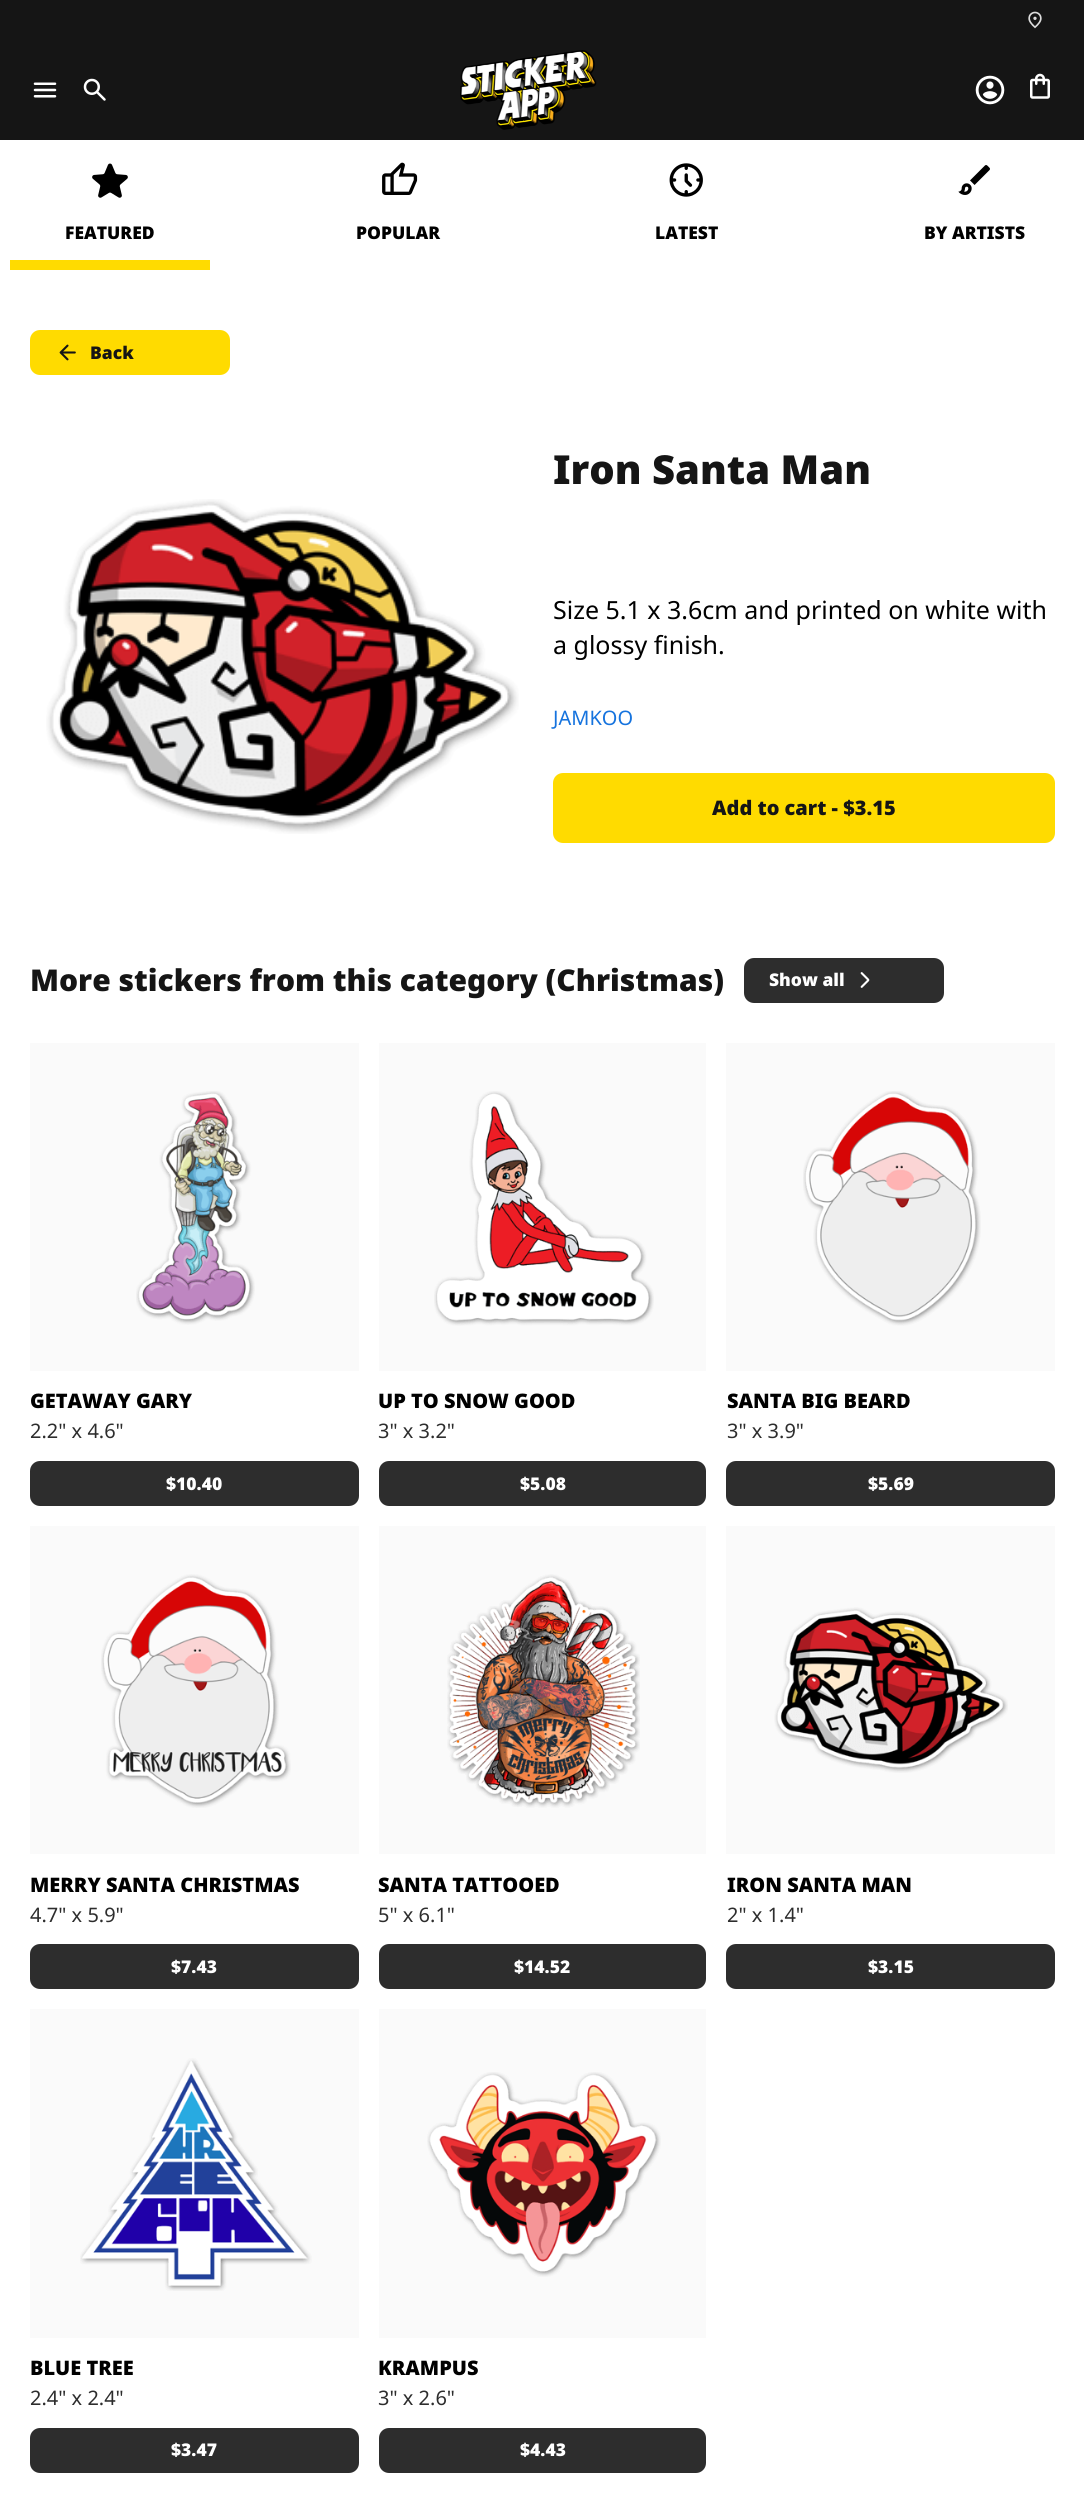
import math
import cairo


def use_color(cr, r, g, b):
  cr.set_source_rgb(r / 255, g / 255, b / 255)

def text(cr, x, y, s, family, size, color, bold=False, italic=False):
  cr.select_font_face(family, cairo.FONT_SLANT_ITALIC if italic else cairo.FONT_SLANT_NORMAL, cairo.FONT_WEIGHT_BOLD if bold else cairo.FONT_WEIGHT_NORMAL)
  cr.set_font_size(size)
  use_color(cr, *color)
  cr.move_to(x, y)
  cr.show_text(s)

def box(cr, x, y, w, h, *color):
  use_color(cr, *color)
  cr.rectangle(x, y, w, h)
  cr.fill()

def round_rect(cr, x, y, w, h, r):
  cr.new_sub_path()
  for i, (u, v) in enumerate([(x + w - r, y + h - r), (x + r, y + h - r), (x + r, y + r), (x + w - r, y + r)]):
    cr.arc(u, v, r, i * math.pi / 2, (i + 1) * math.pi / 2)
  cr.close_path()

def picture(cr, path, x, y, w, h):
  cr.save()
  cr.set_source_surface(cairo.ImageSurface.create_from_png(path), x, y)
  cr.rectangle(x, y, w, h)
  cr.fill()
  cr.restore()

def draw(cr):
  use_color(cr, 255, 255, 255)
  cr.paint()
  box(cr, 0, 0, 1084, 140, 21, 21, 21)
  picture(cr, "img_01.png", 1028, 11, 14, 18)
  picture(cr, "img_02.png", 33, 82, 24, 16)
  picture(cr, "img_03.png", 83, 78, 23, 23)
  picture(cr, "img_04.png", 460, 50, 137, 80)
  picture(cr, "img_05.png", 975, 75, 30, 30)
  picture(cr, "img_06.png", 1030, 73, 20, 26)
  picture(cr, "img_07.png", 92, 163, 36, 35)
  box(cr, 10, 260, 200, 10, 255, 219, 0)
  picture(cr, "img_08.png", 382, 162, 36, 33)
  picture(cr, "img_09.png", 669, 163, 34, 34)
  picture(cr, "img_10.png", 958, 165, 32, 30)
  round_rect(cr, 30, 330, 200, 45, 10)
  cr.fill()
  picture(cr, "img_11.png", 59, 344, 17, 17)
  picture(cr, "img_12.png", 46, 499, 473, 335)
  round_rect(cr, 553, 773, 502, 70, 10)
  cr.fill()
  use_color(cr, 45, 45, 45)
  round_rect(cr, 744, 958, 200, 45, 10)
  cr.fill()
  picture(cr, "img_13.png", 860, 972, 10, 16)
  box(cr, 30, 1043, 329, 328, 250, 250, 250)
  picture(cr, "img_14.png", 136, 1091, 119, 234)
  use_color(cr, 45, 45, 45)
  round_rect(cr, 30, 1461, 329, 45, 10)
  cr.fill()
  box(cr, 379, 1043, 327, 328, 250, 250, 250)
  picture(cr, "img_15.png", 434, 1091, 220, 235)
  use_color(cr, 45, 45, 45)
  round_rect(cr, 379, 1461, 327, 45, 10)
  cr.fill()
  box(cr, 726, 1043, 329, 328, 250, 250, 250)
  picture(cr, "img_16.png", 803, 1091, 178, 235)
  use_color(cr, 45, 45, 45)
  round_rect(cr, 726, 1461, 329, 45, 10)
  cr.fill()
  box(cr, 30, 1526, 329, 328, 250, 250, 250)
  picture(cr, "img_17.png", 101, 1574, 190, 234)
  use_color(cr, 45, 45, 45)
  round_rect(cr, 30, 1944, 329, 45, 10)
  cr.fill()
  box(cr, 379, 1526, 327, 328, 250, 250, 250)
  picture(cr, "img_18.png", 447, 1574, 193, 234)
  use_color(cr, 45, 45, 45)
  round_rect(cr, 379, 1944, 327, 45, 10)
  cr.fill()
  box(cr, 726, 1526, 329, 328, 250, 250, 250)
  picture(cr, "img_19.png", 774, 1607, 234, 166)
  use_color(cr, 45, 45, 45)
  round_rect(cr, 726, 1944, 329, 45, 10)
  cr.fill()
  box(cr, 30, 2009, 329, 329, 250, 250, 250)
  picture(cr, "img_20.png", 80, 2058, 232, 233)
  use_color(cr, 45, 45, 45)
  round_rect(cr, 30, 2428, 329, 45, 10)
  cr.fill()
  box(cr, 379, 2009, 327, 329, 250, 250, 250)
  picture(cr, "img_21.png", 427, 2072, 234, 205)
  use_color(cr, 45, 45, 45)
  round_rect(cr, 379, 2428, 327, 45, 10)
  cr.fill()
  text(cr, 65, 239, "FEATURED", "Noto Sans Black", 17.5, (0, 0, 0))
  text(cr, 356, 239, "POPULAR", "Noto Sans Black", 17.5, (0, 0, 0))
  text(cr, 655, 239, "LATEST", "Noto Sans Black", 17.5, (0, 0, 0))
  text(cr, 924, 239, "BY ARTISTS", "Noto Sans Black", 17.5, (0, 0, 0))
  text(cr, 90, 359, "Back", "Noto Sans Black", 17.5, (21, 21, 21))
  text(cr, 553, 484, "Iron Santa Man", "Noto Sans Black", 40, (21, 21, 21))
  text(cr, 553, 619, "Size 5.1 x 3.6cm and printed on white with", "Noto Sans", 25, (0, 0, 0))
  text(cr, 553, 654, "a glossy finish.", "Noto Sans", 25, (0, 0, 0))
  text(cr, 553, 725, "JAMKOO", "Noto Sans", 20, (21, 115, 222))
  text(cr, 712, 815, "Add to cart - $3.15", "Noto Sans Black", 20, (21, 21, 21))
  text(cr, 30, 991, "More stickers from this category (Christmas)", "Noto Sans Black", 30, (21, 21, 21))
  text(cr, 769, 986, "Show all", "Noto Sans Black", 17.5, (255, 255, 255))
  text(cr, 30, 1408, "GETAWAY GARY", "Noto Sans Black", 20, (0, 0, 0))
  text(cr, 30, 1438, "2.2\" x 4.6\"", "Noto Sans", 20, (45, 45, 45))
  text(cr, 166, 1490, "$10.40", "Noto Sans Black", 17.5, (255, 255, 255))
  text(cr, 378, 1408, "UP TO SNOW GOOD", "Noto Sans Black", 20, (0, 0, 0))
  text(cr, 378, 1438, "3\" x 3.2\"", "Noto Sans", 20, (45, 45, 45))
  text(cr, 520, 1490, "$5.08", "Noto Sans Black", 17.5, (255, 255, 255))
  text(cr, 727, 1408, "SANTA BIG BEARD", "Noto Sans Black", 20, (0, 0, 0))
  text(cr, 727, 1438, "3\" x 3.9\"", "Noto Sans", 20, (45, 45, 45))
  text(cr, 868, 1490, "$5.69", "Noto Sans Black", 17.5, (255, 255, 255))
  text(cr, 30, 1892, "MERRY SANTA CHRISTMAS", "Noto Sans Black", 20, (0, 0, 0))
  text(cr, 30, 1922, "4.7\" x 5.9\"", "Noto Sans", 20, (45, 45, 45))
  text(cr, 171, 1973, "$7.43", "Noto Sans Black", 17.5, (255, 255, 255))
  text(cr, 378, 1892, "SANTA TATTOOED", "Noto Sans Black", 20, (0, 0, 0))
  text(cr, 378, 1922, "5\" x 6.1\"", "Noto Sans", 20, (45, 45, 45))
  text(cr, 514, 1973, "$14.52", "Noto Sans Black", 17.5, (255, 255, 255))
  text(cr, 727, 1892, "IRON SANTA MAN", "Noto Sans Black", 20, (0, 0, 0))
  text(cr, 727, 1922, "2\" x 1.4\"", "Noto Sans", 20, (45, 45, 45))
  text(cr, 868, 1973, "$3.15", "Noto Sans Black", 17.5, (255, 255, 255))
  text(cr, 30, 2375, "BLUE TREE", "Noto Sans Black", 20, (0, 0, 0))
  text(cr, 30, 2405, "2.4\" x 2.4\"", "Noto Sans", 20, (45, 45, 45))
  text(cr, 171, 2456, "$3.47", "Noto Sans Black", 17.5, (255, 255, 255))
  text(cr, 378, 2375, "KRAMPUS", "Noto Sans Black", 20, (0, 0, 0))
  text(cr, 378, 2405, "3\" x 2.6\"", "Noto Sans", 20, (45, 45, 45))
  text(cr, 520, 2456, "$4.43", "Noto Sans Black", 17.5, (255, 255, 255))


surface = cairo.ImageSurface(cairo.FORMAT_RGB24, 1084, 2498)
cr = cairo.Context(surface)
options = cairo.FontOptions()
options.set_hint_metrics(cairo.HINT_METRICS_OFF)
options.set_hint_style(cairo.HINT_STYLE_NONE)
cr.set_font_options(options)
cr.set_miter_limit(4)
draw(cr)
surface.write_to_png("out.png")
